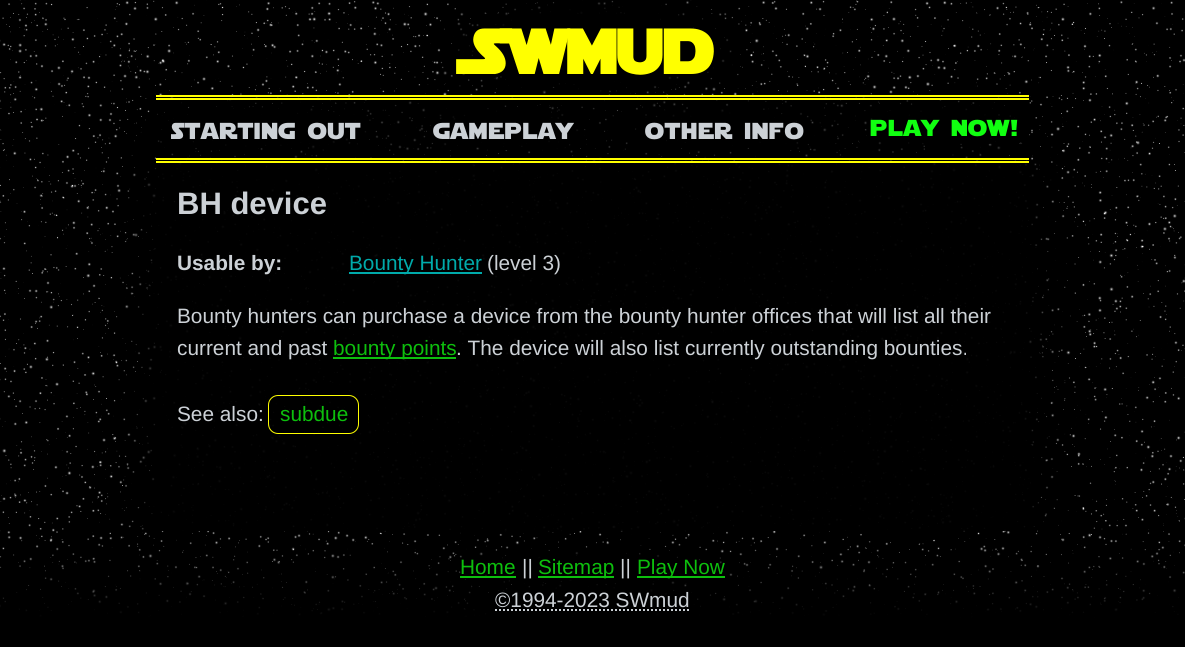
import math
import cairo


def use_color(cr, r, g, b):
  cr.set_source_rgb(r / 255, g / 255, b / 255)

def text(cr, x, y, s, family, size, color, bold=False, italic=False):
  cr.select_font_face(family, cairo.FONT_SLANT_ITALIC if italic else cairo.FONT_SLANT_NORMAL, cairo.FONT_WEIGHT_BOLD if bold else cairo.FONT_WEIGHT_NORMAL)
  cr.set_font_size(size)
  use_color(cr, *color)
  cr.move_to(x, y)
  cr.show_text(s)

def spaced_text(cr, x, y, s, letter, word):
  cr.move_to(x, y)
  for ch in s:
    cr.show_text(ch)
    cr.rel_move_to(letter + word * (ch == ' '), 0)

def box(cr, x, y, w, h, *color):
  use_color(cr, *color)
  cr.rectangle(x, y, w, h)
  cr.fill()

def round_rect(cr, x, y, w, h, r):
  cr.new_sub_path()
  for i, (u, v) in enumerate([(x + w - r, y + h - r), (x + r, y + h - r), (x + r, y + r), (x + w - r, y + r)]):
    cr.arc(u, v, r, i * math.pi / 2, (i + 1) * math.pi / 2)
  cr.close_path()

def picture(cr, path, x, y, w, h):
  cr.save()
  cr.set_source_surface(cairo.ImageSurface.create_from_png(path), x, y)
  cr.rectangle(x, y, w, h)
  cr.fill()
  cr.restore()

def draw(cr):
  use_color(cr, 255, 255, 255)
  cr.paint()
  picture(cr, "img_01.png", 0, 0, 1185, 647)
  cr.set_source_rgba(0, 0, 0, 0.7)
  cr.rectangle(156, 97, 872, 64)
  cr.fill()
  box(cr, 156, 95, 873, 2, 255, 255, 0)
  box(cr, 156, 98, 873, 2, 255, 255, 0)
  box(cr, 156, 158, 873, 2, 255, 255, 0)
  box(cr, 156, 161, 873, 2, 255, 255, 0)
  gradient = cairo.RadialGradient(0, 0, 0, 0, 0, 1)
  gradient.set_matrix(cairo.Matrix(1 / 144, 0, 0, 1 / 28, -1 * 267 / 144, -1 * 129 / 28))
  gradient.add_color_stop_rgba(0, 0, 0, 0, 1)
  gradient.add_color_stop_rgba(0.5, 0, 0, 0, 1)
  gradient.add_color_stop_rgba(1, 0, 0, 0, 0)
  cr.set_source(gradient)
  cr.rectangle(168, 109, 200, 39)
  cr.fill()
  gradient = cairo.RadialGradient(0, 0, 0, 0, 0, 1)
  gradient.set_matrix(cairo.Matrix(1 / 108, 0, 0, 1 / 28, -1 * 504 / 108, -1 * 129 / 28))
  gradient.add_color_stop_rgba(0, 0, 0, 0, 1)
  gradient.add_color_stop_rgba(0.5, 0, 0, 0, 1)
  gradient.add_color_stop_rgba(1, 0, 0, 0, 0)
  cr.set_source(gradient)
  cr.rectangle(427, 109, 151, 39)
  cr.fill()
  gradient = cairo.RadialGradient(0, 0, 0, 0, 0, 1)
  gradient.set_matrix(cairo.Matrix(1 / 122, 0, 0, 1 / 28, -1 * 725 / 122, -1 * 129 / 28))
  gradient.add_color_stop_rgba(0, 0, 0, 0, 1)
  gradient.add_color_stop_rgba(0.5, 0, 0, 0, 1)
  gradient.add_color_stop_rgba(1, 0, 0, 0, 0)
  cr.set_source(gradient)
  cr.rectangle(645, 109, 166, 39)
  cr.fill()
  gradient = cairo.RadialGradient(0, 0, 0, 0, 0, 1)
  gradient.set_matrix(cairo.Matrix(1 / 106, 0, 0, 1 / 26, -1 * 945 / 106, -1 * 126 / 26))
  gradient.add_color_stop_rgba(0, 0, 0, 0, 1)
  gradient.add_color_stop_rgba(0.5, 0, 0, 0, 1)
  gradient.add_color_stop_rgba(1, 0, 0, 0, 0)
  cr.set_source(gradient)
  cr.rectangle(870, 107, 149, 37)
  cr.fill()
  box(cr, 349, 272, 133, 2, 0, 170, 170)
  box(cr, 333, 357, 123, 2, 13, 191, 13)
  round_rect(cr, 268.5, 395.5, 90, 38, 9.5)
  use_color(cr, 255, 255, 0)
  cr.set_line_width(1)
  cr.stroke()
  box(cr, 460, 576, 56, 2, 13, 191, 13)
  box(cr, 538, 576, 76, 2, 13, 191, 13)
  box(cr, 637, 576, 88, 2, 13, 191, 13)
  cr.new_path()
  cr.move_to(495, 610)
  cr.line_to(690, 610)
  use_color(cr, 204, 209, 214)
  cr.set_line_width(2)
  cr.set_dash([2, 2])
  cr.stroke()
  cr.select_font_face("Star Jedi", cairo.FONT_SLANT_NORMAL, cairo.FONT_WEIGHT_BOLD)
  cr.set_font_size(62)
  use_color(cr, 255, 255, 0)
  spaced_text(cr, 471, 74, "SW", 2, 0)
  spaced_text(cr, 566, 74, "mud", 1, 0)
  cr.select_font_face("Star Jedi")
  cr.set_font_size(22.9)
  use_color(cr, 204, 209, 214)
  spaced_text(cr, 171, 139, "starting out", 1.1, 0)
  spaced_text(cr, 433, 139, "gameplay", 1.1, 0)
  spaced_text(cr, 645, 139, "other info", 1.1, 0)
  use_color(cr, 17, 255, 17)
  spaced_text(cr, 870, 136, "play now!", 1.1, 0)
  text(cr, 177, 214, "BH device", "Liberation Sans", 31, (204, 209, 214), bold=True)
  text(cr, 177, 270, "Usable by:", "Liberation Sans", 20.8, (204, 209, 214), bold=True)
  text(cr, 349, 270, "Bounty Hunter", "Liberation Sans", 20.8, (0, 170, 170))
  text(cr, 487, 270, "(level 3)", "Liberation Sans", 20.8, (204, 209, 214))
  text(cr, 177, 323, "Bounty hunters can purchase a device from the bounty hunter offices that will list all their", "Liberation Sans", 20.8, (204, 209, 214))
  text(cr, 177, 355, "current and past", "Liberation Sans", 20.8, (204, 209, 214))
  text(cr, 333, 355, "bounty points", "Liberation Sans", 20.8, (13, 191, 13))
  text(cr, 456, 355, ". The device will also list currently outstanding bounties.", "Liberation Sans", 20.8, (204, 209, 214))
  text(cr, 177, 421, "See also:", "Liberation Sans", 20.8, (204, 209, 214))
  text(cr, 280, 421, "subdue", "Liberation Sans", 20.8, (13, 191, 13))
  text(cr, 460, 574, "Home", "Liberation Sans", 20.8, (13, 191, 13))
  text(cr, 522, 574, "||", "Liberation Sans", 20.8, (204, 209, 214))
  text(cr, 538, 574, "Sitemap", "Liberation Sans", 20.8, (13, 191, 13))
  text(cr, 620, 574, "||", "Liberation Sans", 20.8, (204, 209, 214))
  text(cr, 637, 574, "Play Now", "Liberation Sans", 20.8, (13, 191, 13))
  text(cr, 495, 607, "©1994-2023 SWmud", "Liberation Sans", 20.8, (204, 209, 214))


surface = cairo.ImageSurface(cairo.FORMAT_RGB24, 1185, 647)
cr = cairo.Context(surface)
options = cairo.FontOptions()
options.set_hint_metrics(cairo.HINT_METRICS_OFF)
options.set_hint_style(cairo.HINT_STYLE_NONE)
cr.set_font_options(options)
cr.set_miter_limit(4)
draw(cr)
surface.write_to_png("out.png")
